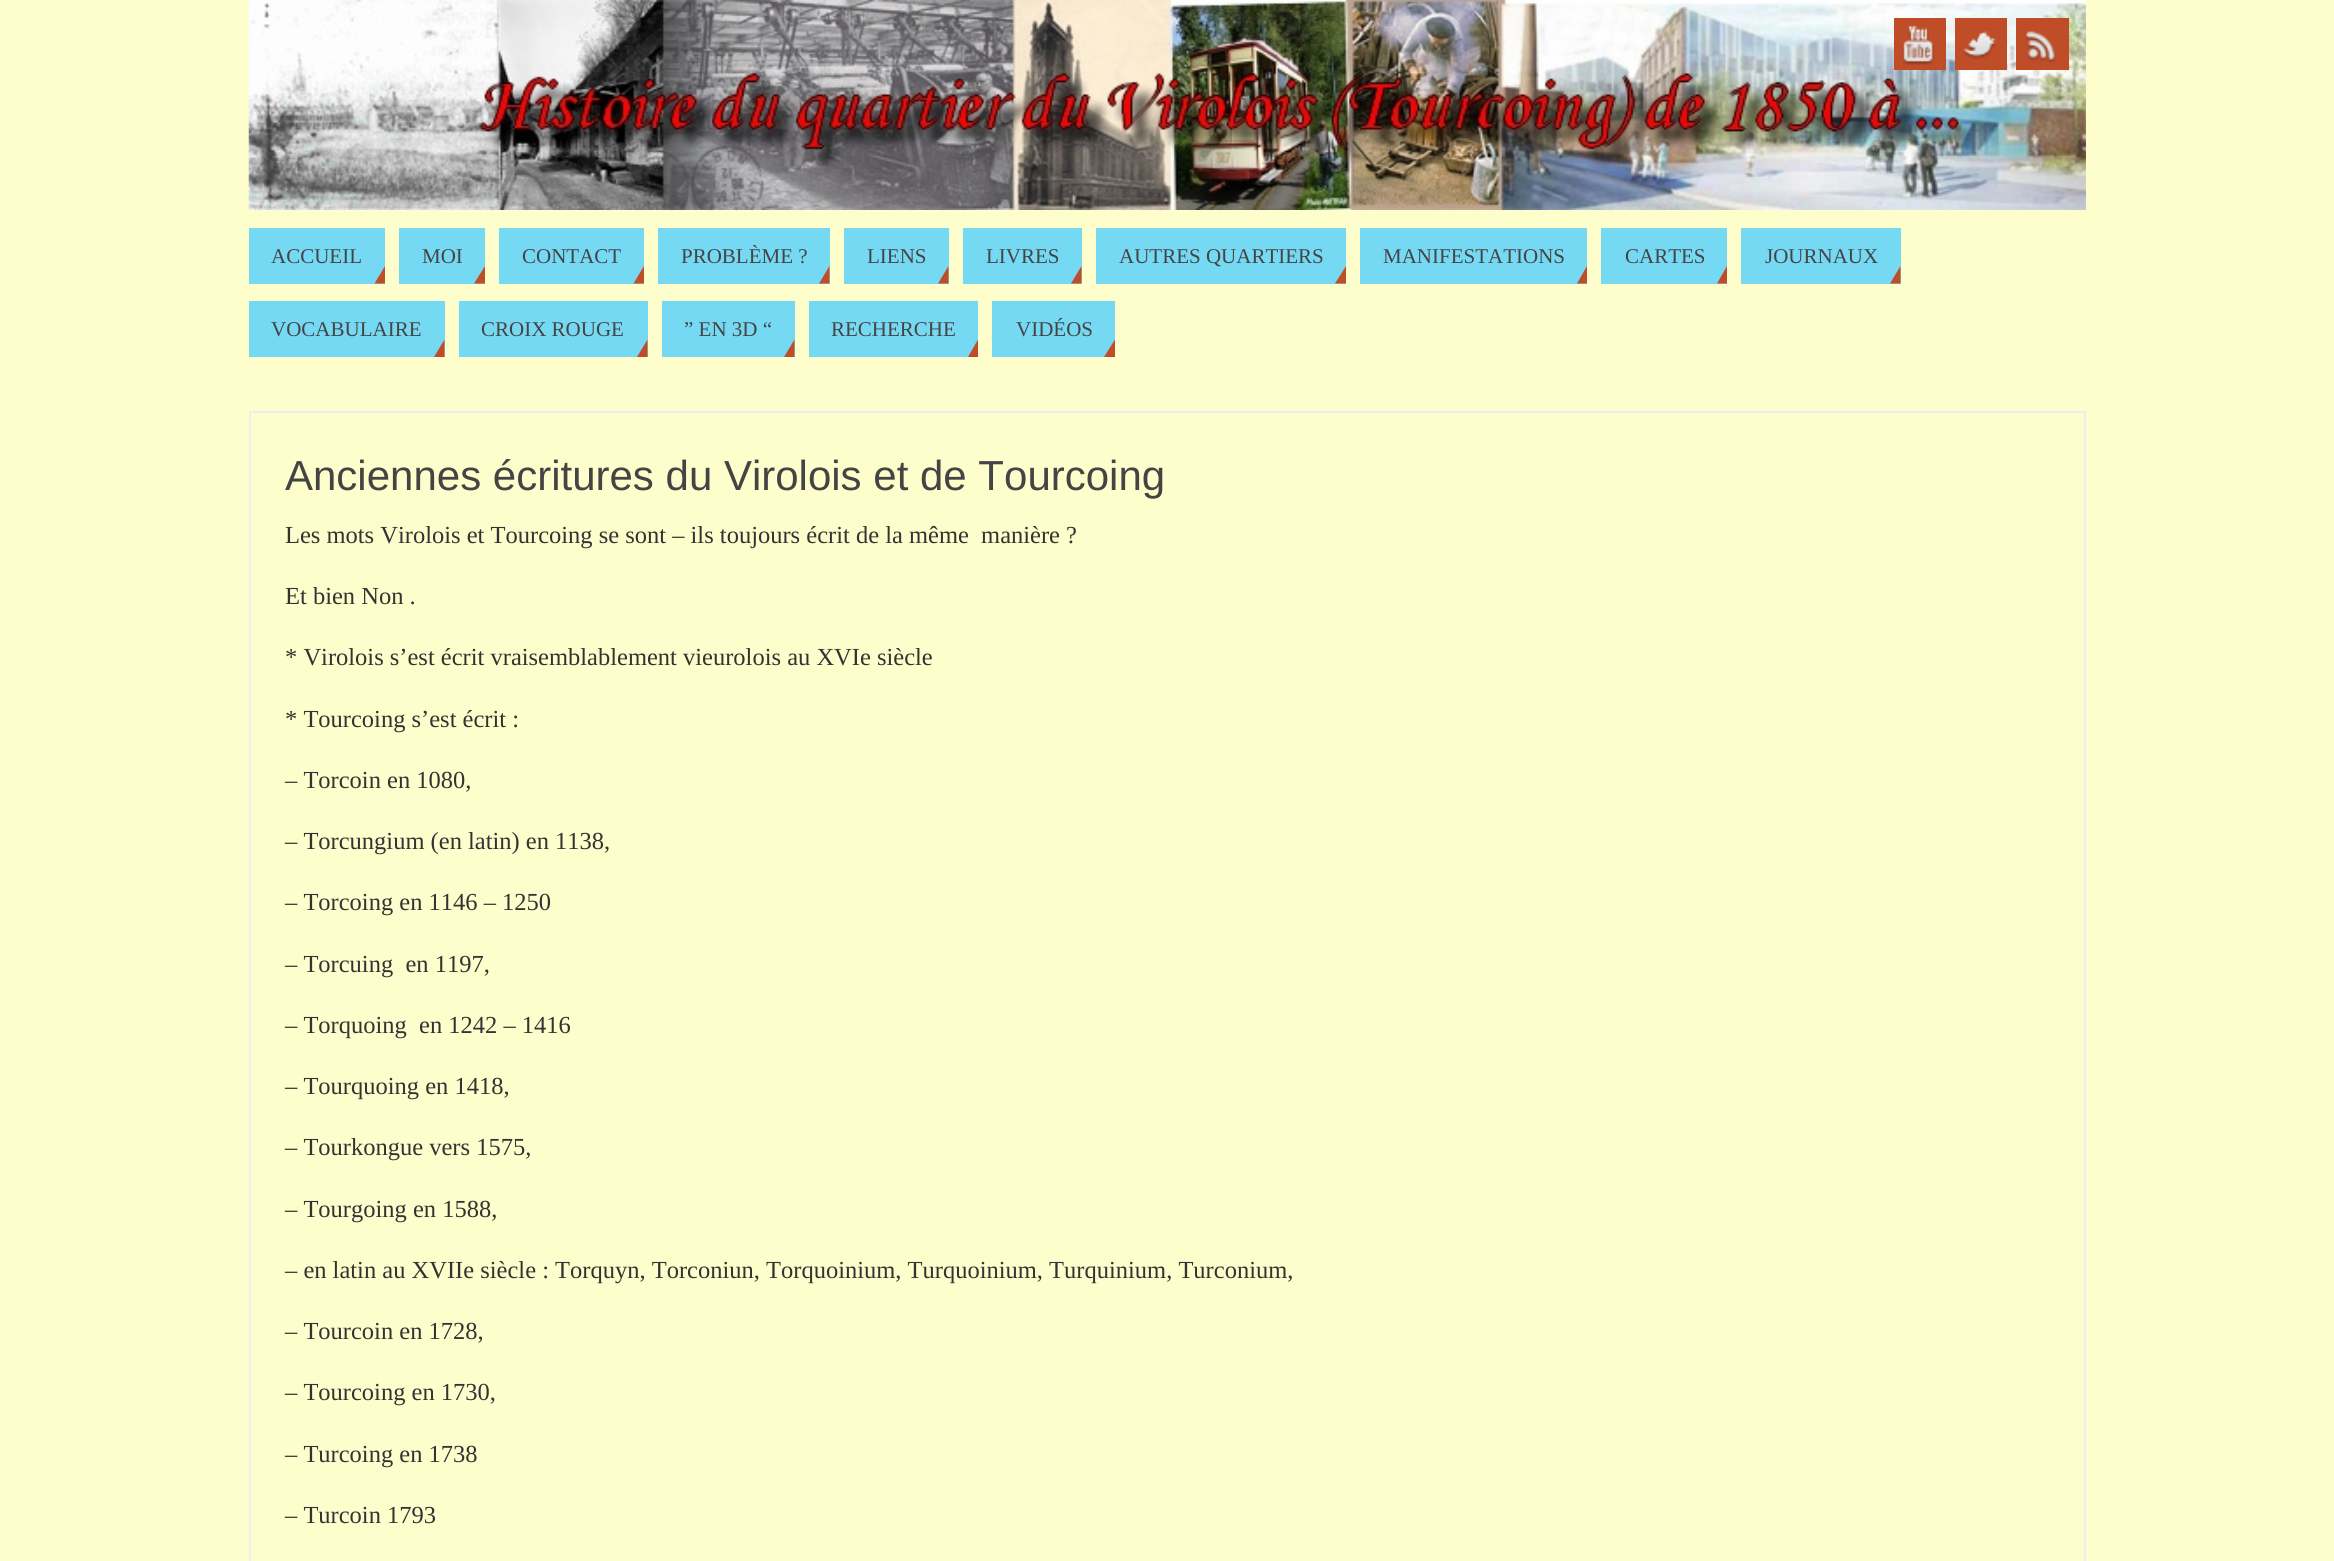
import math
import cairo


def use_color(cr, r, g, b):
  cr.set_source_rgb(r / 255, g / 255, b / 255)

def text(cr, x, y, s, family, size, color, bold=False, italic=False):
  cr.select_font_face(family, cairo.FONT_SLANT_ITALIC if italic else cairo.FONT_SLANT_NORMAL, cairo.FONT_WEIGHT_BOLD if bold else cairo.FONT_WEIGHT_NORMAL)
  cr.set_font_size(size)
  use_color(cr, *color)
  cr.move_to(x, y)
  cr.show_text(s)

def box(cr, x, y, w, h, *color):
  use_color(cr, *color)
  cr.rectangle(x, y, w, h)
  cr.fill()

def picture(cr, path, x, y, w, h):
  cr.save()
  cr.set_source_surface(cairo.ImageSurface.create_from_png(path), x, y)
  cr.rectangle(x, y, w, h)
  cr.fill()
  cr.restore()

def draw(cr):
  use_color(cr, 253, 254, 203)
  cr.paint()
  picture(cr, "img_01.png", 248, 0, 1838, 210)
  box(cr, 1894, 18, 52, 52, 191, 77, 40)
  picture(cr, "img_02.png", 1902, 25, 32, 40)
  box(cr, 1955, 18, 52, 52, 191, 77, 40)
  picture(cr, "img_03.png", 1963, 31, 33, 29)
  box(cr, 2016, 18, 53, 52, 191, 77, 40)
  picture(cr, "img_04.png", 2025, 31, 31, 32)
  box(cr, 249, 228, 136, 56, 118, 217, 244)
  use_color(cr, 191, 77, 40)
  cr.new_path()
  cr.move_to(385, 283.5)
  cr.line_to(374.5, 283.5)
  cr.line_to(385, 266)
  cr.close_path()
  cr.fill()
  box(cr, 399, 228, 86, 56, 118, 217, 244)
  use_color(cr, 191, 77, 40)
  cr.new_path()
  cr.move_to(485, 283.5)
  cr.line_to(474, 283.5)
  cr.line_to(485, 266)
  cr.close_path()
  cr.fill()
  box(cr, 499, 228, 145, 56, 118, 217, 244)
  use_color(cr, 191, 77, 40)
  cr.new_path()
  cr.move_to(644, 283.5)
  cr.line_to(633.5, 283.5)
  cr.line_to(644, 266)
  cr.close_path()
  cr.fill()
  box(cr, 658, 228, 172, 56, 118, 217, 244)
  use_color(cr, 191, 77, 40)
  cr.new_path()
  cr.move_to(829.5, 283.5)
  cr.line_to(819, 283.5)
  cr.line_to(829.5, 266)
  cr.close_path()
  cr.fill()
  box(cr, 844, 228, 105, 56, 118, 217, 244)
  use_color(cr, 191, 77, 40)
  cr.new_path()
  cr.move_to(948.5, 283.5)
  cr.line_to(938, 283.5)
  cr.line_to(948.5, 266)
  cr.close_path()
  cr.fill()
  box(cr, 963, 228, 119, 56, 118, 217, 244)
  use_color(cr, 191, 77, 40)
  cr.new_path()
  cr.move_to(1081.5, 283.5)
  cr.line_to(1071, 283.5)
  cr.line_to(1081.5, 266)
  cr.close_path()
  cr.fill()
  box(cr, 1096, 228, 250, 56, 118, 217, 244)
  use_color(cr, 191, 77, 40)
  cr.new_path()
  cr.move_to(1346, 283.5)
  cr.line_to(1335, 283.5)
  cr.line_to(1346, 266)
  cr.close_path()
  cr.fill()
  box(cr, 1360, 228, 227, 56, 118, 217, 244)
  use_color(cr, 191, 77, 40)
  cr.new_path()
  cr.move_to(1587, 283.5)
  cr.line_to(1577, 283.5)
  cr.line_to(1587, 266)
  cr.close_path()
  cr.fill()
  box(cr, 1601, 228, 126, 56, 118, 217, 244)
  use_color(cr, 191, 77, 40)
  cr.new_path()
  cr.move_to(1727, 283.5)
  cr.line_to(1717, 283.5)
  cr.line_to(1727, 266)
  cr.close_path()
  cr.fill()
  box(cr, 1741, 228, 160, 56, 118, 217, 244)
  use_color(cr, 191, 77, 40)
  cr.new_path()
  cr.move_to(1900.5, 283.5)
  cr.line_to(1890, 283.5)
  cr.line_to(1900.5, 266)
  cr.close_path()
  cr.fill()
  box(cr, 249, 301, 196, 56, 118, 217, 244)
  use_color(cr, 191, 77, 40)
  cr.new_path()
  cr.move_to(444.5, 357)
  cr.line_to(434, 357)
  cr.line_to(444.5, 339.5)
  cr.close_path()
  cr.fill()
  box(cr, 459, 301, 189, 56, 118, 217, 244)
  use_color(cr, 191, 77, 40)
  cr.new_path()
  cr.move_to(647.5, 357)
  cr.line_to(637, 357)
  cr.line_to(647.5, 339.5)
  cr.close_path()
  cr.fill()
  box(cr, 662, 301, 133, 56, 118, 217, 244)
  use_color(cr, 191, 77, 40)
  cr.new_path()
  cr.move_to(794.5, 357)
  cr.line_to(784, 357)
  cr.line_to(794.5, 339.5)
  cr.close_path()
  cr.fill()
  box(cr, 809, 301, 169, 56, 118, 217, 244)
  use_color(cr, 191, 77, 40)
  cr.new_path()
  cr.move_to(978, 357)
  cr.line_to(968, 357)
  cr.line_to(978, 339.5)
  cr.close_path()
  cr.fill()
  box(cr, 992, 301, 123, 56, 118, 217, 244)
  use_color(cr, 191, 77, 40)
  cr.new_path()
  cr.move_to(1115, 357)
  cr.line_to(1104, 357)
  cr.line_to(1115, 339.5)
  cr.close_path()
  cr.fill()
  cr.rectangle(250, 412, 1835, 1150)
  use_color(cr, 238, 238, 238)
  cr.stroke()
  text(cr, 271, 263, "ACCUEIL", "Liberation Serif", 21, (68, 68, 68))
  text(cr, 422, 263, "MOI", "Liberation Serif", 21, (68, 68, 68))
  text(cr, 522, 263, "CONTACT", "Liberation Serif", 21, (68, 68, 68))
  text(cr, 681, 263, "PROBLÈME ?", "Liberation Serif", 21, (68, 68, 68))
  text(cr, 867, 263, "LIENS", "Liberation Serif", 21, (68, 68, 68))
  text(cr, 986, 263, "LIVRES", "Liberation Serif", 21, (68, 68, 68))
  text(cr, 1119, 263, "AUTRES QUARTIERS", "Liberation Serif", 21, (68, 68, 68))
  text(cr, 1383, 263, "MANIFESTATIONS", "Liberation Serif", 21, (68, 68, 68))
  text(cr, 1625, 263, "CARTES", "Liberation Serif", 21, (68, 68, 68))
  text(cr, 1765, 263, "JOURNAUX", "Liberation Serif", 21, (68, 68, 68))
  text(cr, 271, 336, "VOCABULAIRE", "Liberation Serif", 21, (68, 68, 68))
  text(cr, 481, 336, "CROIX ROUGE", "Liberation Serif", 21, (68, 68, 68))
  text(cr, 684, 336, "” EN 3D “", "Liberation Serif", 21, (68, 68, 68))
  text(cr, 831, 336, "RECHERCHE", "Liberation Serif", 21, (68, 68, 68))
  text(cr, 1016, 336, "VIDÉOS", "Liberation Serif", 21, (68, 68, 68))
  text(cr, 285, 490, "Anciennes écritures du Virolois et de Tourcoing", "Liberation Sans", 42, (68, 68, 68))
  text(cr, 285, 543, "Les mots Virolois et Tourcoing se sont – ils toujours écrit de la même  manière ?", "Liberation Serif", 24.5, (51, 51, 51))
  text(cr, 285, 604, "Et bien Non .", "Liberation Serif", 24.5, (51, 51, 51))
  text(cr, 285, 665, "* Virolois s’est écrit vraisemblablement vieurolois au XVIe siècle", "Liberation Serif", 24.5, (51, 51, 51))
  text(cr, 285, 727, "* Tourcoing s’est écrit :", "Liberation Serif", 24.5, (51, 51, 51))
  text(cr, 285, 788, "– Torcoin en 1080,", "Liberation Serif", 24.5, (51, 51, 51))
  text(cr, 285, 849, "– Torcungium (en latin) en 1138,", "Liberation Serif", 24.5, (51, 51, 51))
  text(cr, 285, 910, "– Torcoing en 1146 – 1250", "Liberation Serif", 24.5, (51, 51, 51))
  text(cr, 285, 972, "– Torcuing  en 1197,", "Liberation Serif", 24.5, (51, 51, 51))
  text(cr, 285, 1033, "– Torquoing  en 1242 – 1416", "Liberation Serif", 24.5, (51, 51, 51))
  text(cr, 285, 1094, "– Tourquoing en 1418,", "Liberation Serif", 24.5, (51, 51, 51))
  text(cr, 285, 1155, "– Tourkongue vers 1575,", "Liberation Serif", 24.5, (51, 51, 51))
  text(cr, 285, 1217, "– Tourgoing en 1588,", "Liberation Serif", 24.5, (51, 51, 51))
  text(cr, 285, 1278, "– en latin au XVIIe siècle : Torquyn, Torconiun, Torquoinium, Turquoinium, Turquinium, Turconium,", "Liberation Serif", 24.5, (51, 51, 51))
  text(cr, 285, 1339, "– Tourcoin en 1728,", "Liberation Serif", 24.5, (51, 51, 51))
  text(cr, 285, 1400, "– Tourcoing en 1730,", "Liberation Serif", 24.5, (51, 51, 51))
  text(cr, 285, 1462, "– Turcoing en 1738", "Liberation Serif", 24.5, (51, 51, 51))
  text(cr, 285, 1523, "– Turcoin 1793", "Liberation Serif", 24.5, (51, 51, 51))


surface = cairo.ImageSurface(cairo.FORMAT_RGB24, 2334, 1561)
cr = cairo.Context(surface)
options = cairo.FontOptions()
options.set_hint_metrics(cairo.HINT_METRICS_OFF)
options.set_hint_style(cairo.HINT_STYLE_NONE)
cr.set_font_options(options)
cr.set_miter_limit(4)
draw(cr)
surface.write_to_png("out.png")
